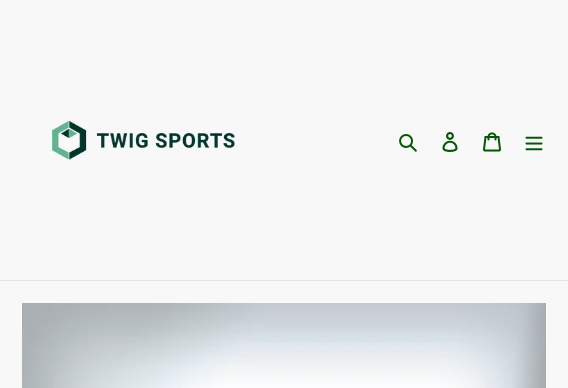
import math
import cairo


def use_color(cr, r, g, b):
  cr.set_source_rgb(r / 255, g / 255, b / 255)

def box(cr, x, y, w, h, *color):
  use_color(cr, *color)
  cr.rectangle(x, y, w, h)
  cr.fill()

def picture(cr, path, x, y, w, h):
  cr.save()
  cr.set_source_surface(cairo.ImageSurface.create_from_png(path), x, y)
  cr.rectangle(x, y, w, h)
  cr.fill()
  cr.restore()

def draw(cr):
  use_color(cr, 248, 248, 248)
  cr.paint()
  box(cr, 0, 280, 568, 1, 228, 228, 228)
  picture(cr, "img_01.png", 52, 120, 183, 40)
  picture(cr, "img_02.png", 399, 134, 18, 18)
  picture(cr, "img_03.png", 442, 132, 16, 20)
  picture(cr, "img_04.png", 483, 132, 18, 20)
  picture(cr, "img_05.png", 525, 136, 18, 15)
  picture(cr, "img_06.png", 22, 303, 524, 85)


surface = cairo.ImageSurface(cairo.FORMAT_RGB24, 568, 388)
cr = cairo.Context(surface)
options = cairo.FontOptions()
options.set_hint_metrics(cairo.HINT_METRICS_OFF)
options.set_hint_style(cairo.HINT_STYLE_NONE)
cr.set_font_options(options)
cr.set_miter_limit(4)
draw(cr)
surface.write_to_png("out.png")
